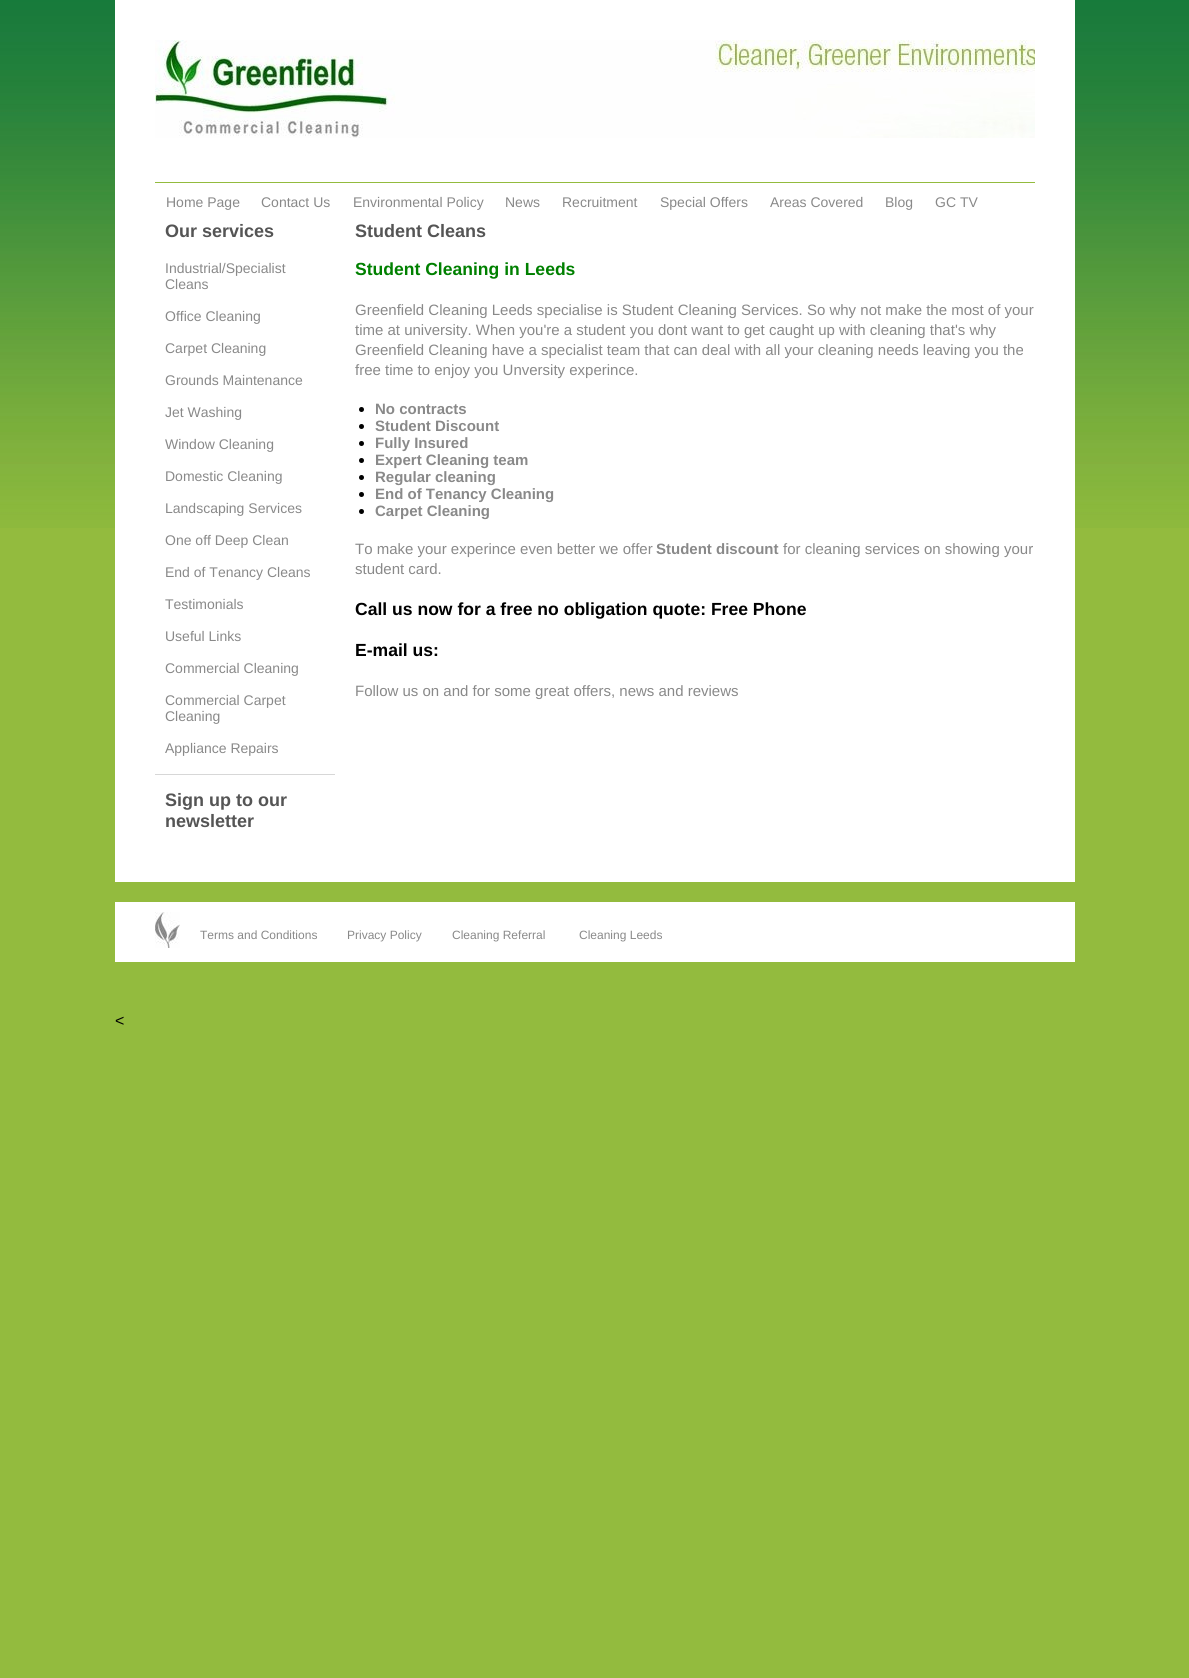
import math
import cairo


def use_color(cr, r, g, b):
  cr.set_source_rgb(r / 255, g / 255, b / 255)

def text(cr, x, y, s, family, size, color, bold=False, italic=False):
  cr.select_font_face(family, cairo.FONT_SLANT_ITALIC if italic else cairo.FONT_SLANT_NORMAL, cairo.FONT_WEIGHT_BOLD if bold else cairo.FONT_WEIGHT_NORMAL)
  cr.set_font_size(size)
  use_color(cr, *color)
  cr.move_to(x, y)
  cr.show_text(s)

def box(cr, x, y, w, h, *color):
  use_color(cr, *color)
  cr.rectangle(x, y, w, h)
  cr.fill()

def picture(cr, path, x, y, w, h):
  cr.save()
  cr.set_source_surface(cairo.ImageSurface.create_from_png(path), x, y)
  cr.rectangle(x, y, w, h)
  cr.fill()
  cr.restore()

def draw(cr):
  use_color(cr, 147, 187, 62)
  cr.paint()
  picture(cr, "img_01.png", 0, 0, 1189, 528)
  box(cr, 115, 0, 960, 882, 255, 255, 255)
  picture(cr, "img_02.png", 155, 40, 880, 98)
  box(cr, 155, 182, 880, 1, 147, 187, 62)
  box(cr, 155, 774, 180, 1, 215, 215, 215)
  use_color(cr, 0, 0, 0)
  cr.arc(361.5, 409.5, 2.5, 0, 2 * math.pi)
  cr.fill()
  cr.arc(361.5, 426.5, 2.5, 0, 2 * math.pi)
  cr.fill()
  cr.arc(361.5, 443.5, 2.5, 0, 2 * math.pi)
  cr.fill()
  cr.arc(361.5, 460.5, 2.5, 0, 2 * math.pi)
  cr.fill()
  cr.arc(361.5, 477.5, 2.5, 0, 2 * math.pi)
  cr.fill()
  cr.arc(361.5, 494.5, 2.5, 0, 2 * math.pi)
  cr.fill()
  cr.arc(361.5, 511.5, 2.5, 0, 2 * math.pi)
  cr.fill()
  box(cr, 115, 902, 960, 60, 255, 255, 255)
  picture(cr, "img_03.png", 155, 912, 25, 36)
  text(cr, 166, 207, "Home Page", "Liberation Sans", 14, (137, 137, 137))
  text(cr, 261, 207, "Contact Us", "Liberation Sans", 14, (137, 137, 137))
  text(cr, 353, 207, "Environmental Policy", "Liberation Sans", 14, (137, 137, 137))
  text(cr, 505, 207, "News", "Liberation Sans", 14, (137, 137, 137))
  text(cr, 562, 207, "Recruitment", "Liberation Sans", 14, (137, 137, 137))
  text(cr, 660, 207, "Special Offers", "Liberation Sans", 14, (137, 137, 137))
  text(cr, 770, 207, "Areas Covered", "Liberation Sans", 14, (137, 137, 137))
  text(cr, 885, 207, "Blog", "Liberation Sans", 14, (137, 137, 137))
  text(cr, 935, 207, "GC TV", "Liberation Sans", 14, (137, 137, 137))
  text(cr, 165, 237, "Our services", "Liberation Sans", 18, (85, 85, 85), bold=True)
  text(cr, 165, 273, "Industrial/Specialist", "Liberation Sans", 14, (137, 137, 137))
  text(cr, 165, 289, "Cleans", "Liberation Sans", 14, (137, 137, 137))
  text(cr, 165, 321, "Office Cleaning", "Liberation Sans", 14, (137, 137, 137))
  text(cr, 165, 353, "Carpet Cleaning", "Liberation Sans", 14, (137, 137, 137))
  text(cr, 165, 385, "Grounds Maintenance", "Liberation Sans", 14, (137, 137, 137))
  text(cr, 165, 417, "Jet Washing", "Liberation Sans", 14, (137, 137, 137))
  text(cr, 165, 449, "Window Cleaning", "Liberation Sans", 14, (137, 137, 137))
  text(cr, 165, 481, "Domestic Cleaning", "Liberation Sans", 14, (137, 137, 137))
  text(cr, 165, 513, "Landscaping Services", "Liberation Sans", 14, (137, 137, 137))
  text(cr, 165, 545, "One off Deep Clean", "Liberation Sans", 14, (137, 137, 137))
  text(cr, 165, 577, "End of Tenancy Cleans", "Liberation Sans", 14, (137, 137, 137))
  text(cr, 165, 609, "Testimonials", "Liberation Sans", 14, (137, 137, 137))
  text(cr, 165, 641, "Useful Links", "Liberation Sans", 14, (137, 137, 137))
  text(cr, 165, 673, "Commercial Cleaning", "Liberation Sans", 14, (137, 137, 137))
  text(cr, 165, 705, "Commercial Carpet", "Liberation Sans", 14, (137, 137, 137))
  text(cr, 165, 721, "Cleaning", "Liberation Sans", 14, (137, 137, 137))
  text(cr, 165, 753, "Appliance Repairs", "Liberation Sans", 14, (137, 137, 137))
  text(cr, 165, 806, "Sign up to our", "Liberation Sans", 18, (85, 85, 85), bold=True)
  text(cr, 165, 827, "newsletter", "Liberation Sans", 18, (85, 85, 85), bold=True)
  text(cr, 355, 237, "Student Cleans", "Liberation Sans", 18, (85, 85, 85), bold=True)
  text(cr, 355, 275, "Student Cleaning in Leeds", "Liberation Sans", 17.55, (0, 128, 0), bold=True)
  text(cr, 355, 315, "Greenfield Cleaning Leeds specialise is Student Cleaning Services. So why not make the most of your", "Liberation Sans", 15, (137, 137, 137))
  text(cr, 355, 335, "time at university. When you're a student you dont want to get caught up with cleaning that's why", "Liberation Sans", 15, (137, 137, 137))
  text(cr, 355, 355, "Greenfield Cleaning have a specialist team that can deal with all your cleaning needs leaving you the", "Liberation Sans", 15, (137, 137, 137))
  text(cr, 355, 375, "free time to enjoy you Unversity experince.", "Liberation Sans", 15, (137, 137, 137))
  text(cr, 375, 414, "No contracts", "Liberation Sans", 15, (137, 137, 137), bold=True)
  text(cr, 375, 431, "Student Discount", "Liberation Sans", 15, (137, 137, 137), bold=True)
  text(cr, 375, 448, "Fully Insured", "Liberation Sans", 15, (137, 137, 137), bold=True)
  text(cr, 375, 465, "Expert Cleaning team", "Liberation Sans", 15, (137, 137, 137), bold=True)
  text(cr, 375, 482, "Regular cleaning", "Liberation Sans", 15, (137, 137, 137), bold=True)
  text(cr, 375, 499, "End of Tenancy Cleaning", "Liberation Sans", 15, (137, 137, 137), bold=True)
  text(cr, 375, 516, "Carpet Cleaning", "Liberation Sans", 15, (137, 137, 137), bold=True)
  text(cr, 355, 554, "To make your experince even better we offer", "Liberation Sans", 15, (137, 137, 137))
  text(cr, 656, 554, "Student discount", "Liberation Sans", 15, (137, 137, 137), bold=True)
  text(cr, 783, 554, "for cleaning services on showing your", "Liberation Sans", 15, (137, 137, 137))
  text(cr, 355, 574, "student card.", "Liberation Sans", 15, (137, 137, 137))
  text(cr, 355, 615, "Call us now for a free no obligation quote: Free Phone", "Liberation Sans", 17.55, (0, 0, 0), bold=True)
  text(cr, 355, 656, "E-mail us:", "Liberation Sans", 17.55, (0, 0, 0), bold=True)
  text(cr, 355, 696, "Follow us on and for some great offers, news and reviews", "Liberation Sans", 15, (137, 137, 137))
  text(cr, 200, 939, "Terms and Conditions", "Liberation Sans", 12, (137, 137, 137))
  text(cr, 347, 939, "Privacy Policy", "Liberation Sans", 12, (137, 137, 137))
  text(cr, 452, 939, "Cleaning Referral", "Liberation Sans", 12, (137, 137, 137))
  text(cr, 579, 939, "Cleaning Leeds", "Liberation Sans", 12, (137, 137, 137))
  text(cr, 115, 1026, "<", "Liberation Sans", 16, (0, 0, 0))


surface = cairo.ImageSurface(cairo.FORMAT_RGB24, 1189, 1678)
cr = cairo.Context(surface)
options = cairo.FontOptions()
options.set_hint_metrics(cairo.HINT_METRICS_OFF)
options.set_hint_style(cairo.HINT_STYLE_NONE)
cr.set_font_options(options)
cr.set_miter_limit(4)
draw(cr)
surface.write_to_png("out.png")
